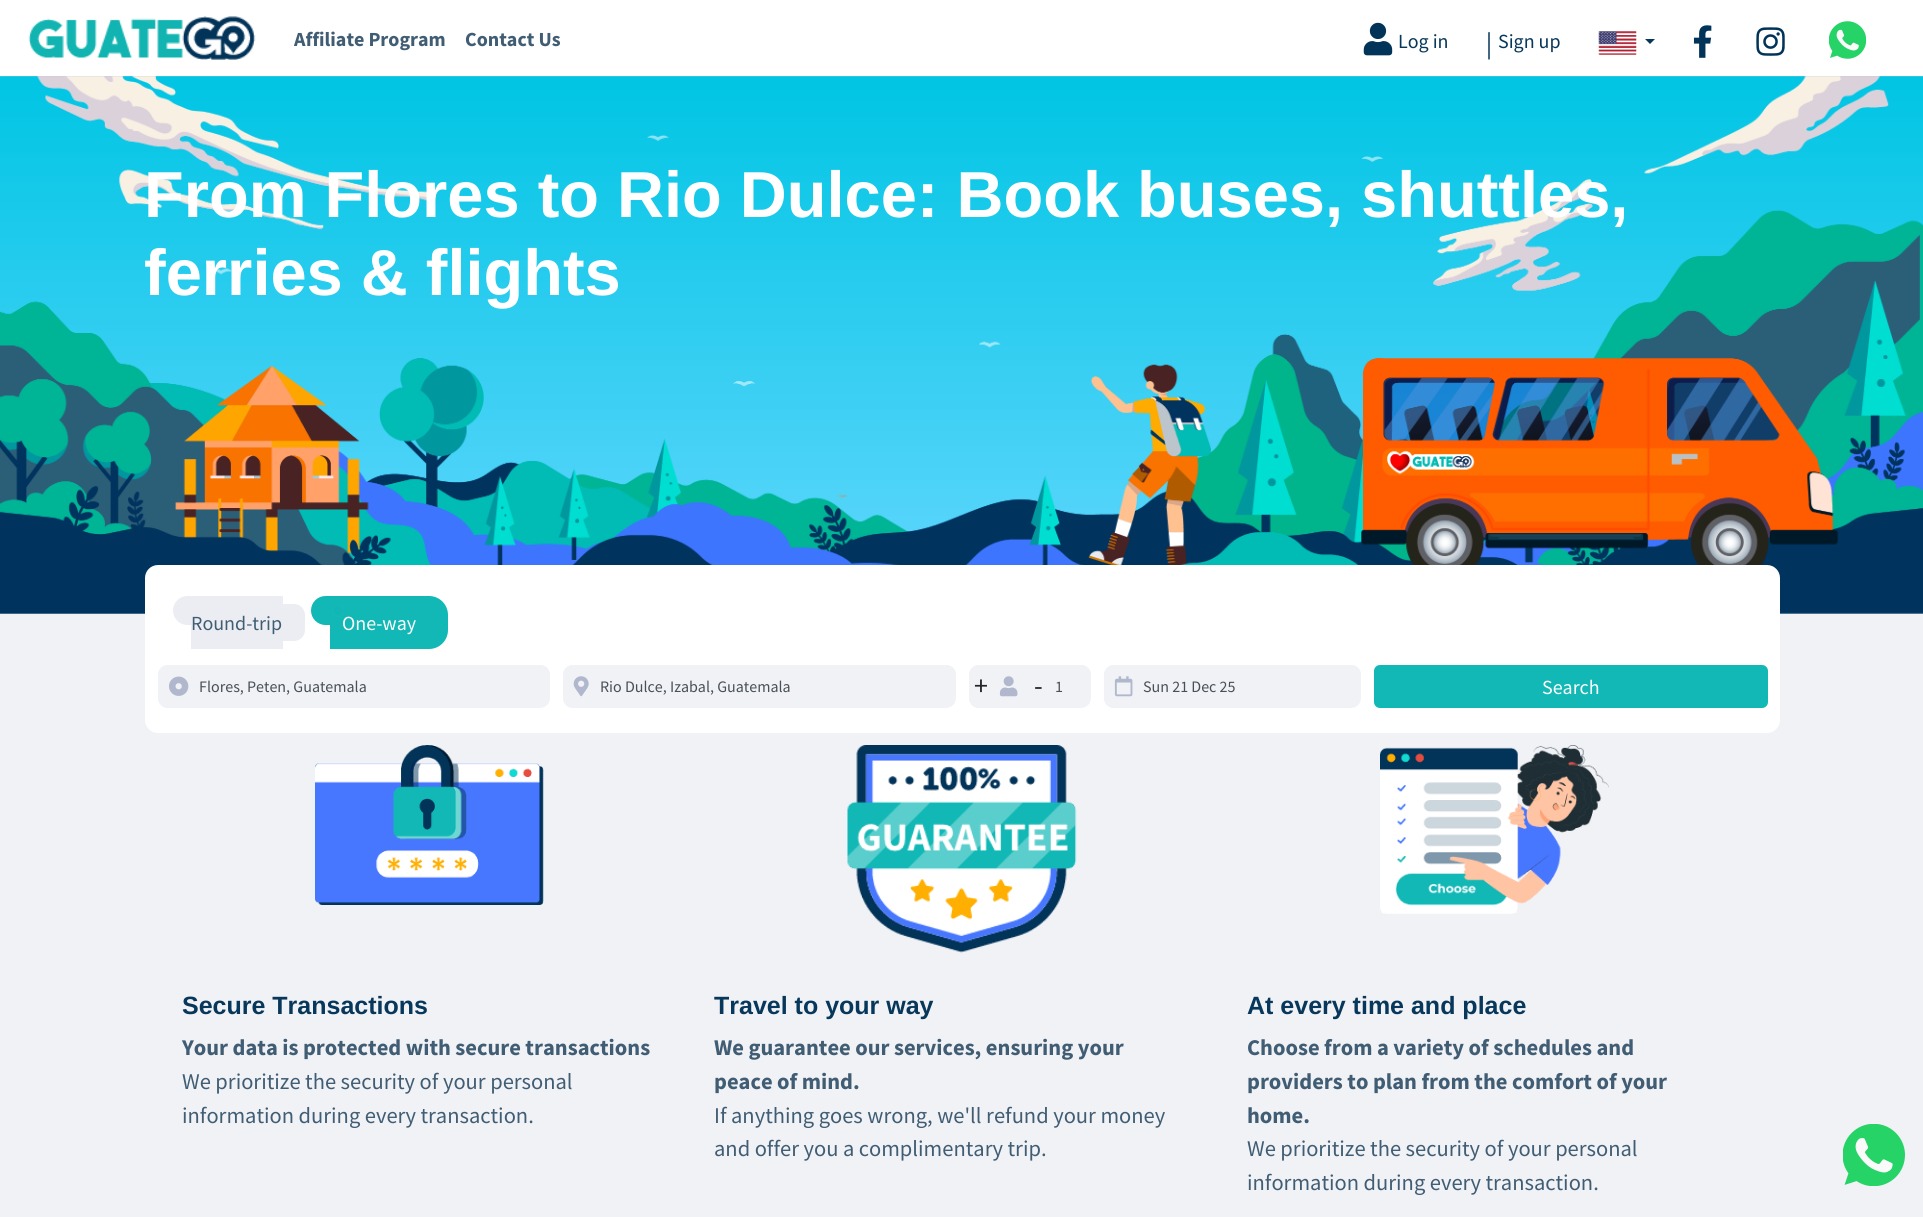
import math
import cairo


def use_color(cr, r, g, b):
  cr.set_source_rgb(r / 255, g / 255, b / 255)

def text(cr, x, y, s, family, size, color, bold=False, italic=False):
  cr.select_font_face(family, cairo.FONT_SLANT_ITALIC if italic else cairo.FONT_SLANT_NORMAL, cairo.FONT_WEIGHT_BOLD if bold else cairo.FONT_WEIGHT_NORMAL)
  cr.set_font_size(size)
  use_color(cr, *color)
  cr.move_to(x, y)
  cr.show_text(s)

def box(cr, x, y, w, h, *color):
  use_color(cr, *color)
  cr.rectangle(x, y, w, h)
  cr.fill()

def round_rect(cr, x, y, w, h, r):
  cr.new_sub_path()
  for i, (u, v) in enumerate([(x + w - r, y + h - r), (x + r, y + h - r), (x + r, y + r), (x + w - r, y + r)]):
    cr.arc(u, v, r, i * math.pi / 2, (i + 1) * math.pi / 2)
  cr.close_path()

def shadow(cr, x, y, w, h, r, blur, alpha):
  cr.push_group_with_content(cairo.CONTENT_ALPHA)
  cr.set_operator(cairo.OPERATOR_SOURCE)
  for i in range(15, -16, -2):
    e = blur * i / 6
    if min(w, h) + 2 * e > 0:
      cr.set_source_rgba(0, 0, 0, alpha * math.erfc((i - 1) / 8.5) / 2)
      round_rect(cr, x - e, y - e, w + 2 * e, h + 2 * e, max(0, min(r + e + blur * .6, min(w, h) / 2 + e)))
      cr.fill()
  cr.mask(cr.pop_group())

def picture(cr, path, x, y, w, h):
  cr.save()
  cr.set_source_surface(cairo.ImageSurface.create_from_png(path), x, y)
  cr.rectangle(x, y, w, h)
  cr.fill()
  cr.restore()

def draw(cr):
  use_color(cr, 241, 242, 246)
  cr.paint()
  use_color(cr, 64, 93, 116)
  shadow(cr, 0, 4, 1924, 76, 0, 4, 0.35)
  box(cr, 0, 0, 1923, 76, 255, 255, 255)
  picture(cr, "img_01.png", 28, 16, 228, 44)
  picture(cr, "img_02.png", 1363, 22, 30, 34)
  picture(cr, "img_03.png", 1598, 31, 39, 24)
  use_color(cr, 7, 55, 90)
  cr.new_path()
  cr.move_to(1645, 39)
  cr.line_to(1655, 39)
  cr.line_to(1650, 44)
  cr.close_path()
  cr.fill()
  picture(cr, "img_04.png", 1693, 25, 19, 33)
  picture(cr, "img_05.png", 1756, 27, 29, 29)
  picture(cr, "img_06.png", 1829, 21, 37, 38)
  picture(cr, "img_07.png", 0, 76, 1923, 538)
  use_color(cr, 255, 255, 255)
  round_rect(cr, 145, 565, 1635, 168, 13)
  cr.fill()
  use_color(cr, 235, 237, 242)
  cr.new_path()
  cr.move_to(187.5, 596)
  cr.line_to(208, 596)
  cr.line_to(208, 625)
  cr.line_to(187.5, 625)
  cr.curve_to(179.5, 625, 173, 618.5, 173, 610.5)
  cr.curve_to(173, 602.5, 179.5, 596, 187.5, 596)
  cr.close_path()
  cr.fill()
  box(cr, 191, 596, 92, 53, 235, 237, 242)
  cr.new_path()
  cr.move_to(283, 604)
  cr.line_to(294, 604)
  cr.curve_to(300, 604, 305, 609, 305, 615)
  cr.line_to(305, 630)
  cr.curve_to(305, 636, 300, 641, 294, 641)
  cr.line_to(283, 641)
  cr.close_path()
  cr.fill()
  use_color(cr, 17, 184, 181)
  cr.new_path()
  cr.move_to(325.5, 596)
  cr.line_to(346, 596)
  cr.line_to(346, 625)
  cr.line_to(325.5, 625)
  cr.curve_to(317.5, 625, 311, 618.5, 311, 610.5)
  cr.curve_to(311, 602.5, 317.5, 596, 325.5, 596)
  cr.close_path()
  cr.fill()
  cr.new_path()
  cr.move_to(330, 596)
  cr.line_to(429, 596)
  cr.curve_to(439.5, 596, 448, 604.5, 448, 615)
  cr.line_to(448, 630)
  cr.curve_to(448, 640.5, 439.5, 649, 429, 649)
  cr.line_to(330, 649)
  cr.close_path()
  cr.fill()
  use_color(cr, 241, 242, 246)
  round_rect(cr, 158, 665, 392, 43, 10)
  cr.fill()
  round_rect(cr, 158, 665, 42, 43, 10)
  cr.fill()
  picture(cr, "img_08.png", 169, 676, 20, 20)
  round_rect(cr, 200, 665, 350, 41, 10)
  cr.fill()
  round_rect(cr, 563, 665, 393, 43, 10)
  cr.fill()
  round_rect(cr, 563, 665, 37, 43, 10)
  cr.fill()
  picture(cr, "img_09.png", 573, 676, 16, 21)
  round_rect(cr, 600, 665, 356, 41, 10)
  cr.fill()
  round_rect(cr, 969, 665, 122, 43, 10)
  cr.fill()
  round_rect(cr, 969, 665, 20, 43, 10)
  cr.fill()
  picture(cr, "img_10.png", 999, 676, 19, 21)
  round_rect(cr, 1043, 665, 48, 41, 10)
  cr.fill()
  round_rect(cr, 1104, 665, 257, 43, 10)
  cr.fill()
  round_rect(cr, 1104, 665, 40, 43, 10)
  cr.fill()
  picture(cr, "img_11.png", 1114, 676, 19, 21)
  round_rect(cr, 1144, 665, 217, 41, 10)
  cr.fill()
  use_color(cr, 17, 184, 181)
  round_rect(cr, 1374, 665, 394, 43, 6)
  cr.fill()
  picture(cr, "img_12.png", 315, 745, 229, 160)
  picture(cr, "img_13.png", 847, 745, 230, 208)
  picture(cr, "img_14.png", 1380, 745, 229, 169)
  picture(cr, "img_15.png", 1843, 1124, 62, 62)
  text(cr, 294, 46, "Affiliate Program", "Source Sans Pro", 20, (64, 93, 116), bold=True)
  text(cr, 465, 46, "Contact Us", "Source Sans Pro", 20, (64, 93, 116), bold=True)
  text(cr, 1398, 48, "Log in", "Source Sans Pro", 20, (7, 55, 90))
  text(cr, 1486, 53, "|", "Liberation Serif", 30, (7, 55, 90))
  text(cr, 1498, 48, "Sign up", "Source Sans Pro", 20, (7, 55, 90))
  text(cr, 144, 217, "From Flores to Rio Dulce: Book buses, shuttles,", "Liberation Sans", 65, (255, 255, 255), bold=True)
  text(cr, 144, 295, "ferries & flights", "Liberation Sans", 65, (255, 255, 255), bold=True)
  text(cr, 191, 630, "Round-trip", "Source Sans Pro", 20, (64, 93, 116))
  text(cr, 342, 630, "One-way", "Source Sans Pro", 20, (255, 255, 255))
  use_color(cr, 20, 185, 182)
  cr.new_path()
  cr.arc(338, 611, 7.5, 0, 2 * math.pi)
  cr.fill_preserve()
  use_color(cr, 17, 183, 182)
  cr.set_line_width(1)
  cr.stroke()
  cr.arc(338, 610.5, 5, 0, 2 * math.pi)
  cr.fill()
  text(cr, 199, 692, "Flores, Peten, Guatemala", "Source Sans Pro", 16, (73, 80, 87))
  text(cr, 600, 692, "Rio Dulce, Izabal, Guatemala", "Source Sans Pro", 16, (73, 80, 87))
  text(cr, 974, 695, "+", "Source Sans Pro", 28, (33, 37, 41))
  text(cr, 1034, 695, "-", "Source Sans Pro", 28, (33, 37, 41))
  text(cr, 1055, 692, "1", "Source Sans Pro", 16, (73, 80, 87))
  text(cr, 1143, 692, "Sun 21 Dec 25", "Source Sans Pro", 16, (73, 80, 87))
  text(cr, 1542, 694, "Search", "Source Sans Pro", 20, (255, 255, 255))
  text(cr, 182, 1014, "Secure Transactions", "Liberation Sans", 25, (7, 55, 90), bold=True)
  text(cr, 182, 1055, "Your data is protected with secure transactions", "Source Sans Pro", 22.5, (64, 93, 116), bold=True)
  text(cr, 182, 1089, "We prioritize the security of your personal", "Source Sans Pro", 22.5, (64, 93, 116))
  text(cr, 182, 1123, "information during every transaction.", "Source Sans Pro", 22.5, (64, 93, 116))
  text(cr, 714, 1014, "Travel to your way", "Liberation Sans", 25, (7, 55, 90), bold=True)
  text(cr, 714, 1055, "We guarantee our services, ensuring your", "Source Sans Pro", 22.5, (64, 93, 116), bold=True)
  text(cr, 714, 1089, "peace of mind.", "Source Sans Pro", 22.5, (64, 93, 116), bold=True)
  text(cr, 714, 1123, "If anything goes wrong, we'll refund your money", "Source Sans Pro", 22.5, (64, 93, 116))
  text(cr, 714, 1156, "and offer you a complimentary trip.", "Source Sans Pro", 22.5, (64, 93, 116))
  text(cr, 1247, 1014, "At every time and place", "Liberation Sans", 25, (7, 55, 90), bold=True)
  text(cr, 1247, 1055, "Choose from a variety of schedules and", "Source Sans Pro", 22.5, (64, 93, 116), bold=True)
  text(cr, 1247, 1089, "providers to plan from the comfort of your", "Source Sans Pro", 22.5, (64, 93, 116), bold=True)
  text(cr, 1247, 1123, "home.", "Source Sans Pro", 22.5, (64, 93, 116), bold=True)
  text(cr, 1247, 1156, "We prioritize the security of your personal", "Source Sans Pro", 22.5, (64, 93, 116))
  text(cr, 1247, 1190, "information during every transaction.", "Source Sans Pro", 22.5, (64, 93, 116))


surface = cairo.ImageSurface(cairo.FORMAT_RGB24, 1923, 1217)
cr = cairo.Context(surface)
options = cairo.FontOptions()
options.set_hint_metrics(cairo.HINT_METRICS_OFF)
options.set_hint_style(cairo.HINT_STYLE_NONE)
cr.set_font_options(options)
cr.set_miter_limit(4)
draw(cr)
surface.write_to_png("out.png")
